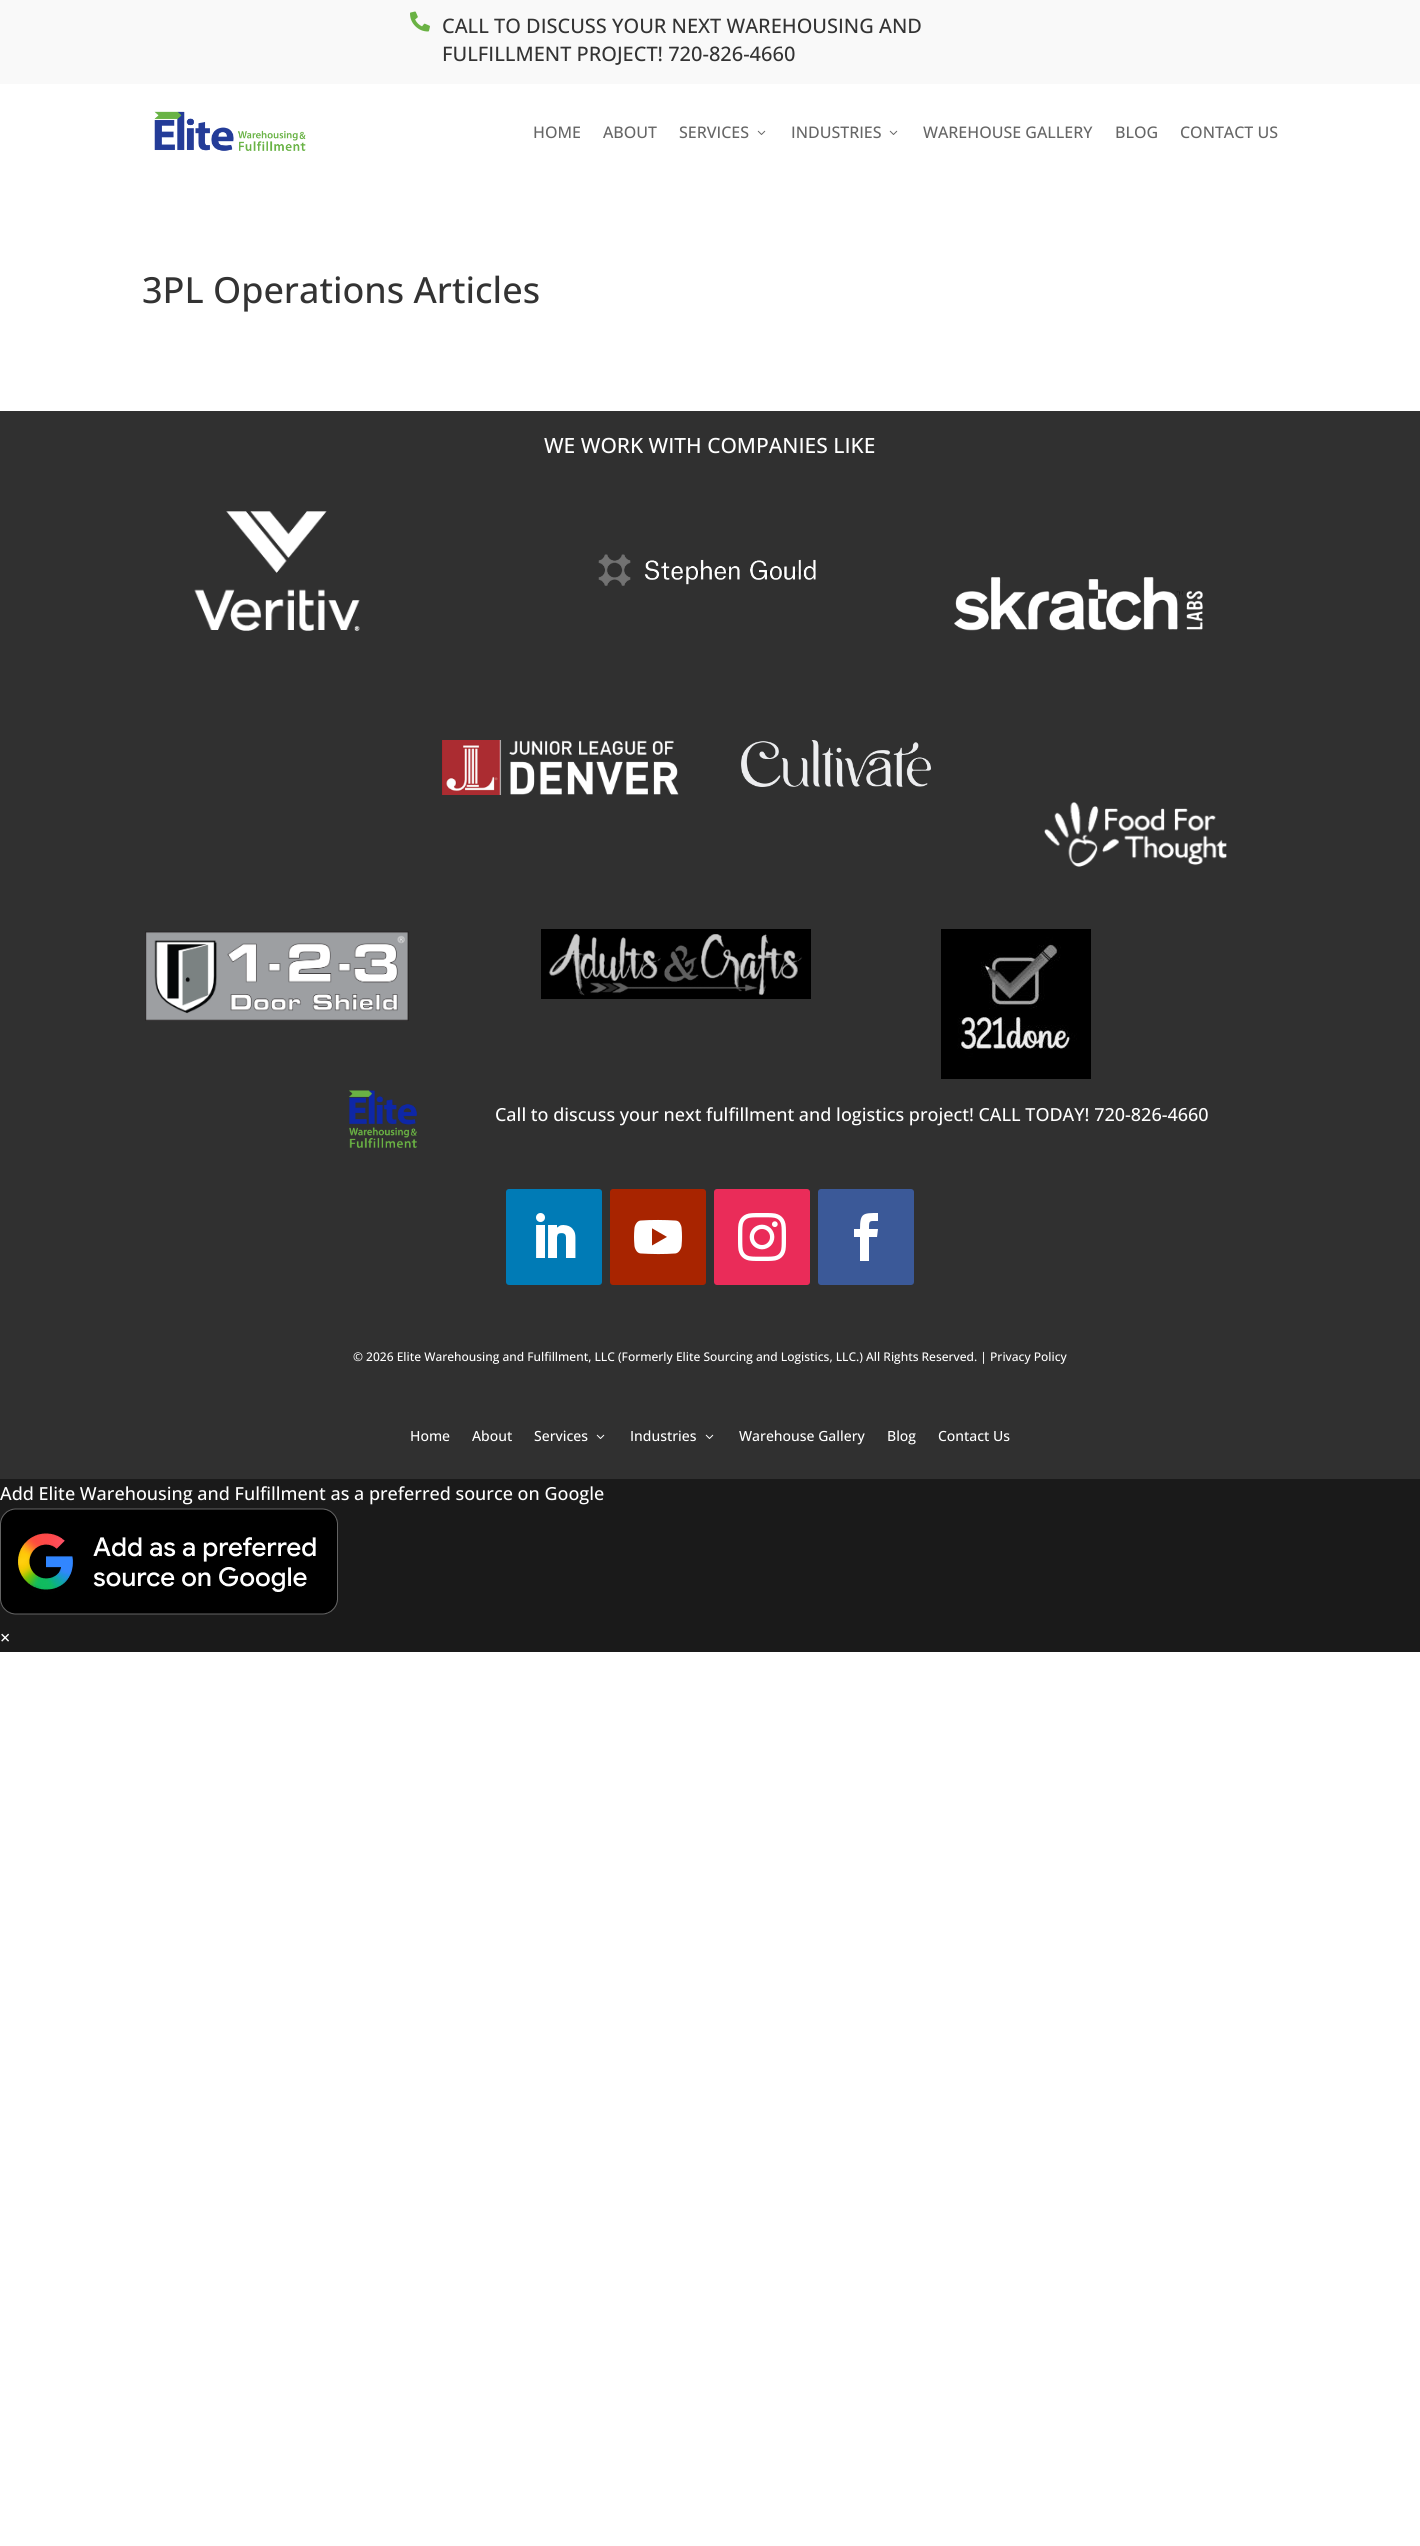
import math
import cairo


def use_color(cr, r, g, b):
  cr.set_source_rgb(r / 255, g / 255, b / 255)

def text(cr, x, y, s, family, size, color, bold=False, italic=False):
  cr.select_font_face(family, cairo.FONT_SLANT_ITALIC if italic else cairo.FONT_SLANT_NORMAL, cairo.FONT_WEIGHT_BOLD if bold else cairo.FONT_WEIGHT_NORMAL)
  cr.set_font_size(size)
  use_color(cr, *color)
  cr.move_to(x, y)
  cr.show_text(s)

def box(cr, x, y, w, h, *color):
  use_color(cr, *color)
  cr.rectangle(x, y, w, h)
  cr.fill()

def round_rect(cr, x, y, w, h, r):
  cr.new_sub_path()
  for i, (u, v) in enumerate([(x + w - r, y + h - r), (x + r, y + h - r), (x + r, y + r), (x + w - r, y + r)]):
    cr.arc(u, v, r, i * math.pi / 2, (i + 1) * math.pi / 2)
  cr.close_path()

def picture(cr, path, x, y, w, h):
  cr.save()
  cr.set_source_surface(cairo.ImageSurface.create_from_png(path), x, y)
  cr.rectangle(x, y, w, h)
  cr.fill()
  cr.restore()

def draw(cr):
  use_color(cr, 255, 255, 255)
  cr.paint()
  box(cr, 0, 0, 1420, 84, 249, 249, 249)
  picture(cr, "img_01.png", 410, 11, 20, 21)
  picture(cr, "img_02.png", 154, 111, 152, 40)
  picture(cr, "img_03.png", 757, 130, 9, 5)
  picture(cr, "img_03.png", 889, 130, 9, 5)
  box(cr, 0, 411, 1420, 1068, 48, 48, 48)
  picture(cr, "img_04.png", 194, 511, 166, 120)
  picture(cr, "img_05.png", 598, 554, 218, 32)
  picture(cr, "img_06.png", 954, 577, 249, 54)
  picture(cr, "img_07.png", 442, 740, 237, 55)
  picture(cr, "img_08.png", 741, 740, 190, 47)
  picture(cr, "img_09.png", 1044, 802, 183, 65)
  picture(cr, "img_10.png", 145, 931, 264, 90)
  picture(cr, "img_11.png", 541, 929, 270, 70)
  picture(cr, "img_12.png", 941, 929, 150, 150)
  picture(cr, "img_13.png", 349, 1090, 68, 58)
  use_color(cr, 0, 123, 182)
  round_rect(cr, 506, 1189, 96, 96, 3)
  cr.fill()
  picture(cr, "img_14.png", 536, 1213, 40, 45)
  use_color(cr, 168, 36, 0)
  round_rect(cr, 610, 1189, 96, 96, 3)
  cr.fill()
  picture(cr, "img_15.png", 634, 1219, 48, 36)
  use_color(cr, 234, 44, 89)
  round_rect(cr, 714, 1189, 96, 96, 3)
  cr.fill()
  picture(cr, "img_16.png", 738, 1213, 48, 48)
  use_color(cr, 59, 89, 152)
  round_rect(cr, 818, 1189, 96, 96, 3)
  cr.fill()
  use_color(cr, 255, 255, 255)
  cr.new_path()
  cr.move_to(860, 1261)
  cr.line_to(869, 1261)
  cr.line_to(869, 1237)
  cr.line_to(877, 1237)
  cr.line_to(878, 1229)
  cr.line_to(869, 1229)
  cr.curve_to(869, 1220, 869, 1221, 878, 1221)
  cr.line_to(878, 1213)
  cr.curve_to(863, 1213, 860, 1213, 860, 1229)
  cr.line_to(854, 1229)
  cr.line_to(854, 1237)
  cr.line_to(860, 1237)
  cr.close_path()
  cr.fill()
  picture(cr, "img_17.png", 596, 1434, 9, 5)
  picture(cr, "img_17.png", 705, 1434, 9, 5)
  box(cr, 0, 1479, 1420, 173, 26, 26, 26)
  picture(cr, "img_18.png", 0, 1508, 338, 107)
  text(cr, 442, 33, "CALL TO DISCUSS YOUR NEXT WAREHOUSING AND", "Open Sans Medium", 20, (51, 51, 51))
  text(cr, 442, 61, "FULFILLMENT PROJECT! 720-826-4660", "Open Sans Medium", 20, (51, 51, 51))
  text(cr, 533, 138, "HOME", "Open Sans Medium", 16, (102, 102, 102))
  text(cr, 603, 138, "ABOUT", "Open Sans Medium", 16, (102, 102, 102))
  text(cr, 679, 138, "SERVICES", "Open Sans Medium", 16, (102, 102, 102))
  text(cr, 791, 138, "INDUSTRIES", "Open Sans Medium", 16, (102, 102, 102))
  text(cr, 923, 138, "WAREHOUSE GALLERY", "Open Sans Medium", 16, (102, 102, 102))
  text(cr, 1115, 138, "BLOG", "Open Sans Medium", 16, (102, 102, 102))
  text(cr, 1180, 138, "CONTACT US", "Open Sans Medium", 16, (102, 102, 102))
  text(cr, 142, 303, "3PL Operations Articles", "Open Sans Medium", 36, (51, 51, 51))
  text(cr, 544, 453, "WE WORK WITH COMPANIES LIKE", "Open Sans Medium", 21, (255, 255, 255))
  text(cr, 495, 1121, "Call to discuss your next fulfillment and logistics project! CALL TODAY! 720-826-4660", "Open Sans Medium", 18, (255, 255, 255))
  text(cr, 353, 1361, "© 2026 Elite Warehousing and Fulfillment, LLC (Formerly Elite Sourcing and Logistics, LLC.) All Rights Reserved. | Privacy Policy", "Open Sans Medium", 12, (255, 255, 255))
  text(cr, 410, 1441, "Home", "Open Sans Medium", 14, (255, 255, 255))
  text(cr, 472, 1441, "About", "Open Sans Medium", 14, (255, 255, 255))
  text(cr, 534, 1441, "Services", "Open Sans Medium", 14, (255, 255, 255))
  text(cr, 630, 1441, "Industries", "Open Sans Medium", 14, (255, 255, 255))
  text(cr, 739, 1441, "Warehouse Gallery", "Open Sans Medium", 14, (255, 255, 255))
  text(cr, 887, 1441, "Blog", "Open Sans Medium", 14, (255, 255, 255))
  text(cr, 938, 1441, "Contact Us", "Open Sans Medium", 14, (255, 255, 255))
  text(cr, 0, 1500, "Add Elite Warehousing and Fulfillment as a preferred source on Google", "Open Sans Medium", 18, (255, 255, 255))
  text(cr, 0, 1644, "×", "Open Sans Medium", 18, (255, 255, 255))


surface = cairo.ImageSurface(cairo.FORMAT_RGB24, 1420, 2546)
cr = cairo.Context(surface)
options = cairo.FontOptions()
options.set_hint_metrics(cairo.HINT_METRICS_OFF)
options.set_hint_style(cairo.HINT_STYLE_NONE)
cr.set_font_options(options)
cr.set_miter_limit(4)
draw(cr)
surface.write_to_png("out.png")
